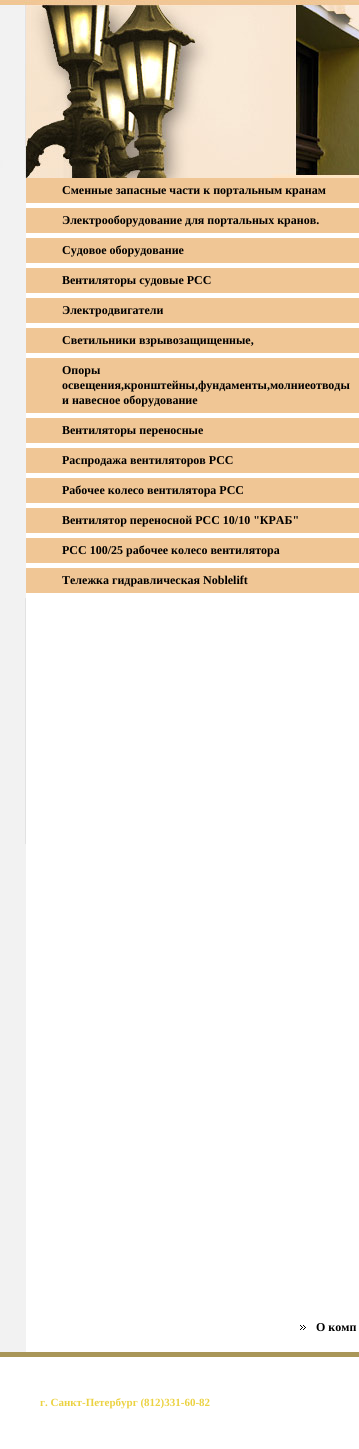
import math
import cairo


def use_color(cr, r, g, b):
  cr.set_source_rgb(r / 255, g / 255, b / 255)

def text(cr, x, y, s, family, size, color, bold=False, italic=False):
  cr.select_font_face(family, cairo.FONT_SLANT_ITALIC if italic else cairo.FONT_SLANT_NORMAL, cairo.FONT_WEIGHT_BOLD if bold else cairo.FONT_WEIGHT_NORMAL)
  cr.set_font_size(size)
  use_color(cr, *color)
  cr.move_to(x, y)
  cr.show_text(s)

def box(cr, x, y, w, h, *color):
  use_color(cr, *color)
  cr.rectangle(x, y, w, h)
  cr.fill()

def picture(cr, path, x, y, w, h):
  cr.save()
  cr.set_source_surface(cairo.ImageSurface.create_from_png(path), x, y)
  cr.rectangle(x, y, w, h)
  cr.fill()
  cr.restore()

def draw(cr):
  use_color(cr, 255, 255, 255)
  cr.paint()
  picture(cr, "img_01.png", 341, 176, 18, 2)
  picture(cr, "img_02.png", 0, 0, 341, 178)
  picture(cr, "img_03.png", 341, 0, 18, 176)
  box(cr, 0, 178, 26, 1174, 242, 242, 242)
  box(cr, 26, 178, 333, 25, 240, 198, 149)
  box(cr, 26, 208, 333, 25, 240, 198, 149)
  box(cr, 26, 238, 333, 25, 240, 198, 149)
  box(cr, 26, 268, 333, 25, 240, 198, 149)
  box(cr, 26, 298, 333, 25, 240, 198, 149)
  box(cr, 26, 328, 333, 25, 240, 198, 149)
  box(cr, 26, 358, 333, 55, 240, 198, 149)
  box(cr, 26, 418, 333, 25, 240, 198, 149)
  box(cr, 26, 448, 333, 25, 240, 198, 149)
  box(cr, 26, 478, 333, 25, 240, 198, 149)
  box(cr, 26, 508, 333, 25, 240, 198, 149)
  box(cr, 26, 538, 333, 25, 240, 198, 149)
  box(cr, 26, 568, 333, 25, 240, 198, 149)
  box(cr, 25, 598, 1, 246, 226, 226, 226)
  picture(cr, "img_04.png", 300, 1325, 6, 5)
  box(cr, 0, 1352, 359, 5, 169, 150, 88)
  text(cr, 62, 194, "Сменные запасные части к портальным кранам", "Liberation Serif", 12, (0, 0, 0), bold=True)
  text(cr, 62, 224, "Электрооборудование для портальных кранов.", "Liberation Serif", 12, (0, 0, 0), bold=True)
  text(cr, 62, 254, "Судовое оборудование", "Liberation Serif", 12, (0, 0, 0), bold=True)
  text(cr, 62, 284, "Вентиляторы судовые РСС", "Liberation Serif", 12, (0, 0, 0), bold=True)
  text(cr, 62, 314, "Электродвигатели", "Liberation Serif", 12, (0, 0, 0), bold=True)
  text(cr, 62, 344, "Светильники взрывозащищенные,", "Liberation Serif", 12, (0, 0, 0), bold=True)
  text(cr, 62, 374, "Опоры", "Liberation Serif", 12, (0, 0, 0), bold=True)
  text(cr, 62, 389, "освещения,кронштейны,фундаменты,молниеотводы", "Liberation Serif", 12, (0, 0, 0), bold=True)
  text(cr, 62, 404, "и навесное оборудование", "Liberation Serif", 12, (0, 0, 0), bold=True)
  text(cr, 62, 434, "Вентиляторы переносные", "Liberation Serif", 12, (0, 0, 0), bold=True)
  text(cr, 62, 464, "Распродажа вентиляторов РСС", "Liberation Serif", 12, (0, 0, 0), bold=True)
  text(cr, 62, 494, "Рабочее колесо вентилятора РСС", "Liberation Serif", 12, (0, 0, 0), bold=True)
  text(cr, 62, 524, "Вентилятор переносной РСС 10/10 \"КРАБ\"", "Liberation Serif", 12, (0, 0, 0), bold=True)
  text(cr, 62, 554, "РСС 100/25 рабочее колесо вентилятора", "Liberation Serif", 12, (0, 0, 0), bold=True)
  text(cr, 62, 584, "Тележка гидравлическая Noblelift", "Liberation Serif", 12, (0, 0, 0), bold=True)
  text(cr, 316, 1331, "О комп", "Liberation Serif", 12, (0, 0, 0), bold=True)
  text(cr, 40, 1406, "г. Санкт-Петербург (812)331-60-82", "Liberation Serif", 11, (235, 210, 65), bold=True)


surface = cairo.ImageSurface(cairo.FORMAT_RGB24, 359, 1449)
cr = cairo.Context(surface)
options = cairo.FontOptions()
options.set_hint_metrics(cairo.HINT_METRICS_OFF)
options.set_hint_style(cairo.HINT_STYLE_NONE)
cr.set_font_options(options)
cr.set_miter_limit(4)
draw(cr)
surface.write_to_png("out.png")
